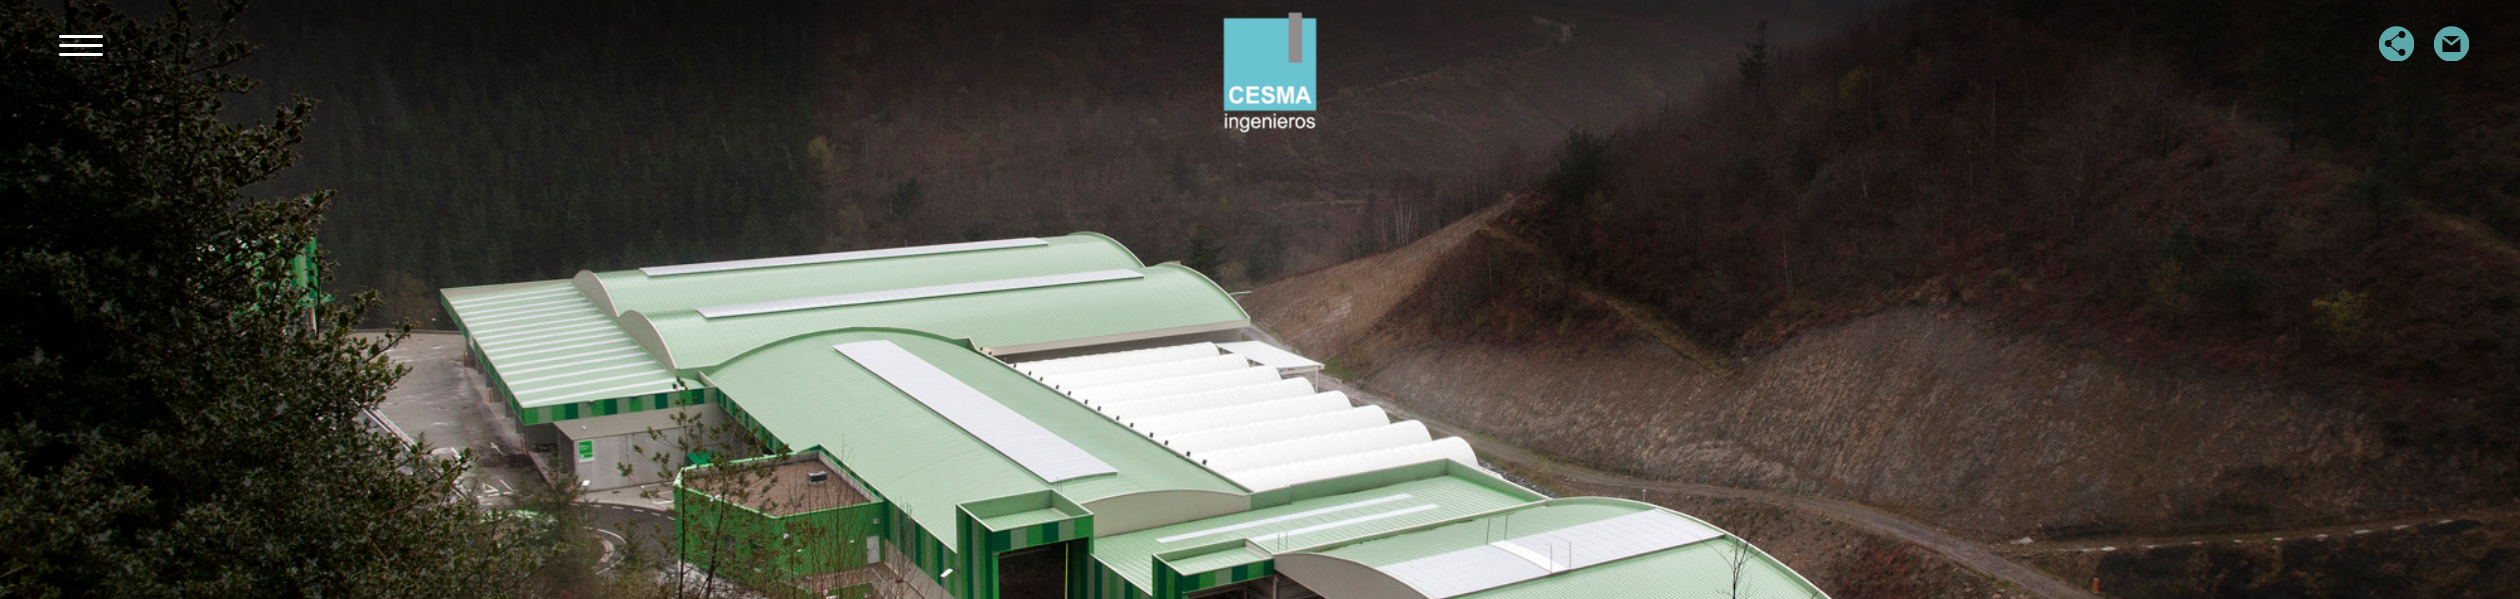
import math
import cairo


def use_color(cr, r, g, b):
  cr.set_source_rgb(r / 255, g / 255, b / 255)

def round_rect(cr, x, y, w, h, r):
  cr.new_sub_path()
  for i, (u, v) in enumerate([(x + w - r, y + h - r), (x + r, y + h - r), (x + r, y + r), (x + w - r, y + r)]):
    cr.arc(u, v, r, i * math.pi / 2, (i + 1) * math.pi / 2)
  cr.close_path()

def picture(cr, path, x, y, w, h):
  cr.save()
  cr.set_source_surface(cairo.ImageSurface.create_from_png(path), x, y)
  cr.rectangle(x, y, w, h)
  cr.fill()
  cr.restore()

def draw(cr):
  use_color(cr, 255, 255, 255)
  cr.paint()
  picture(cr, "img_01.png", 0, 0, 2520, 599)
  use_color(cr, 255, 255, 255)
  round_rect(cr, 59, 35, 44, 3, 1.5)
  cr.fill()
  round_rect(cr, 59, 44, 44, 3, 1.5)
  cr.fill()
  round_rect(cr, 59, 53, 44, 3, 1.5)
  cr.fill()
  picture(cr, "img_02.png", 1223, 12, 94, 121)
  picture(cr, "img_03.png", 2379, 26, 35, 35)
  picture(cr, "img_04.png", 2434, 26, 35, 35)


surface = cairo.ImageSurface(cairo.FORMAT_RGB24, 2520, 599)
cr = cairo.Context(surface)
options = cairo.FontOptions()
options.set_hint_metrics(cairo.HINT_METRICS_OFF)
options.set_hint_style(cairo.HINT_STYLE_NONE)
cr.set_font_options(options)
cr.set_miter_limit(4)
draw(cr)
surface.write_to_png("out.png")
